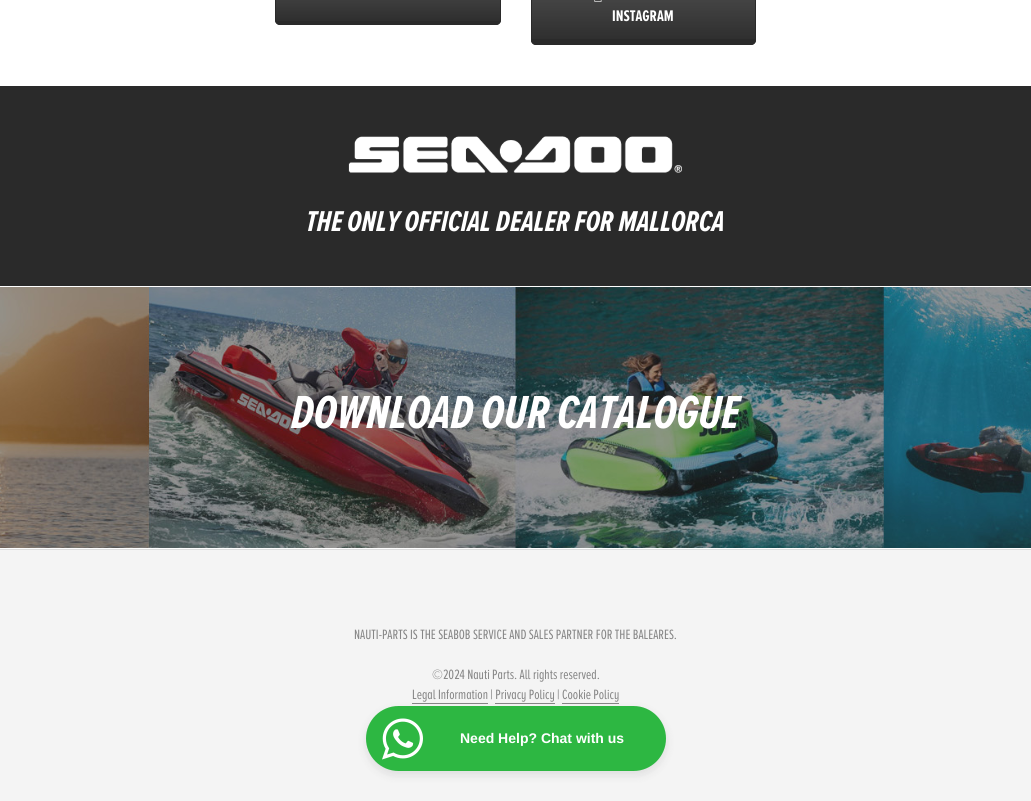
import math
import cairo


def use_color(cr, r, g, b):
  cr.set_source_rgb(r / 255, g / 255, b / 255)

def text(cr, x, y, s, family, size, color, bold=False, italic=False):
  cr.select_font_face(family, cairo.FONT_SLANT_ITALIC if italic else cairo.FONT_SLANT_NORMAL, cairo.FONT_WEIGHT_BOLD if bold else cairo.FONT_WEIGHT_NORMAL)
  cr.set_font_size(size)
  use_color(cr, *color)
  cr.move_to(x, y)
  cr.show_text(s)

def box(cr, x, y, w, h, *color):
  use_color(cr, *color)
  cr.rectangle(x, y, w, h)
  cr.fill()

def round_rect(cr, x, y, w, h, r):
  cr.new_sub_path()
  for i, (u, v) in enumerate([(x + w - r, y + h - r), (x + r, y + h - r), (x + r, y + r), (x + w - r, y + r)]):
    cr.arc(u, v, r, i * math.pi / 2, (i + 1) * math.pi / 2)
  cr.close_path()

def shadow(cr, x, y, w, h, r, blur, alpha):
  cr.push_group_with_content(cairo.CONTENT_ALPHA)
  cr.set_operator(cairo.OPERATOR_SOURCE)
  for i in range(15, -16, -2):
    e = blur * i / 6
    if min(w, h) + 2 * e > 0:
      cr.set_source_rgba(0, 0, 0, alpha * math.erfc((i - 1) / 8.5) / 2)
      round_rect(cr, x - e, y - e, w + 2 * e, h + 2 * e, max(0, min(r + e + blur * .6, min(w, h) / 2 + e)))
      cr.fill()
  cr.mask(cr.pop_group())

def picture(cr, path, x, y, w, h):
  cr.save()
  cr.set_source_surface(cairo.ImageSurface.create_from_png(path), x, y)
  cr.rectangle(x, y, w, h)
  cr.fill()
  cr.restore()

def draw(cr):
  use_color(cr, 244, 244, 244)
  cr.paint()
  box(cr, 0, 549, 1031, 1, 221, 221, 221)
  box(cr, 0, 0, 1031, 86, 255, 255, 255)
  use_color(cr, 42, 42, 42)
  round_rect(cr, 275, -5, 226, 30, 5)
  cr.fill()
  gradient = cairo.LinearGradient(388, -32, 388, 24)
  gradient.add_color_stop_rgba(0, 1, 1, 1, 0.2)
  gradient.add_color_stop_rgba(1, 1, 1, 1, 0.01)
  cr.set_source(gradient)
  cr.rectangle(275, 0, 226, 21)
  cr.fill()
  round_rect(cr, 275.5, -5.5, 225, 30, 4.5)
  use_color(cr, 42, 42, 42)
  cr.set_line_width(1)
  cr.stroke()
  round_rect(cr, 531, -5, 225, 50, 5)
  cr.fill()
  gradient = cairo.LinearGradient(644, -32, 644, 44)
  gradient.add_color_stop_rgba(0, 1, 1, 1, 0.2)
  gradient.add_color_stop_rgba(1, 1, 1, 1, 0.01)
  cr.set_source(gradient)
  cr.rectangle(532, 0, 223, 39)
  cr.fill()
  round_rect(cr, 531.5, -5.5, 224, 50, 4.5)
  use_color(cr, 42, 42, 42)
  cr.stroke()
  picture(cr, "img_01.png", 594, 0, 8, 2)
  box(cr, 0, 86, 1031, 200, 42, 42, 42)
  picture(cr, "img_02.png", 348, 136, 334, 37)
  picture(cr, "img_03.png", 0, 287, 1031, 261)
  box(cr, 0, 286, 1031, 1, 255, 255, 255)
  box(cr, 0, 548, 1031, 1, 255, 255, 255)
  box(cr, 412, 703, 76, 1, 134, 134, 134)
  box(cr, 495, 703, 60, 1, 134, 134, 134)
  box(cr, 562, 703, 57, 1, 134, 134, 134)
  use_color(cr, 32, 32, 37)
  shadow(cr, 365, 709, 302, 67, 33.5, 4, 0.09)
  use_color(cr, 45, 183, 66)
  round_rect(cr, 366, 706, 300, 65, 32.5)
  cr.fill()
  picture(cr, "img_04.png", 382, 718, 41, 42)
  text(cr, 612, 21, "INSTAGRAM", "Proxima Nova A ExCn", 16, (255, 255, 255), bold=True)
  text(cr, 306, 231, "THE ONLY OFFICIAL DEALER FOR MALLORCA", "Proxima Nova A ExCn", 29.75, (255, 255, 255), bold=True, italic=True)
  text(cr, 291, 428, "DOWNLOAD OUR CATALOGUE", "Proxima Nova A ExCn", 48, (255, 255, 255), bold=True, italic=True)
  text(cr, 354, 639, "NAUTI-PARTS IS THE SEABOB SERVICE AND SALES PARTNER FOR THE BALEARES.", "Proxima Nova A ExCn", 14, (134, 134, 134))
  text(cr, 432, 679, "©2024 Nauti Parts. All rights reserved.", "Proxima Nova A ExCn", 14, (134, 134, 134))
  text(cr, 412, 699, "Legal Information | Privacy Policy | Cookie Policy", "Proxima Nova A ExCn", 14, (134, 134, 134))
  text(cr, 460, 743, "Need Help? Chat with us", "Liberation Sans", 14, (255, 255, 255), bold=True)


surface = cairo.ImageSurface(cairo.FORMAT_RGB24, 1031, 801)
cr = cairo.Context(surface)
options = cairo.FontOptions()
options.set_hint_metrics(cairo.HINT_METRICS_OFF)
options.set_hint_style(cairo.HINT_STYLE_NONE)
cr.set_font_options(options)
cr.set_miter_limit(4)
draw(cr)
surface.write_to_png("out.png")
